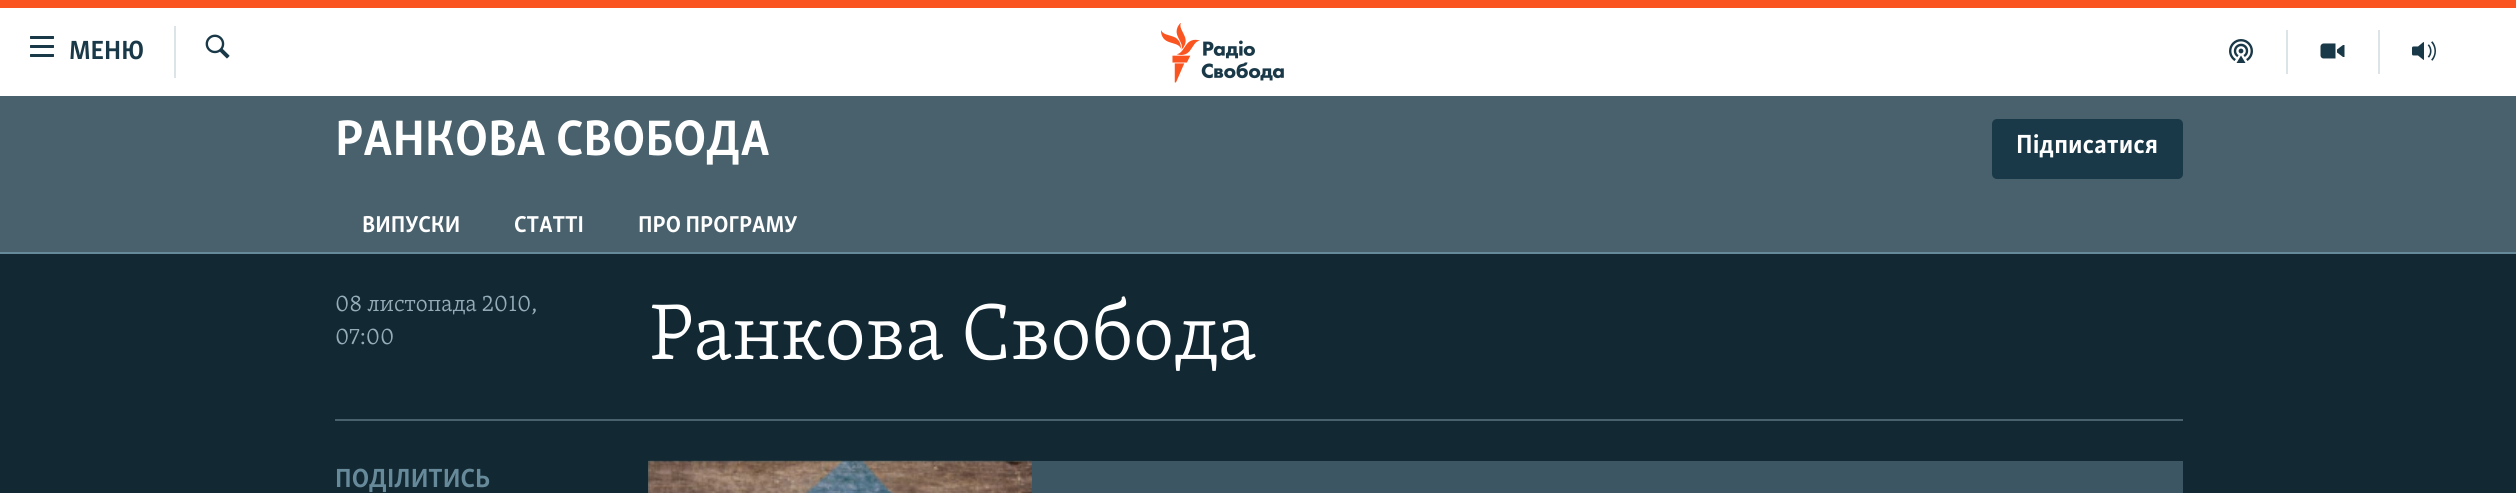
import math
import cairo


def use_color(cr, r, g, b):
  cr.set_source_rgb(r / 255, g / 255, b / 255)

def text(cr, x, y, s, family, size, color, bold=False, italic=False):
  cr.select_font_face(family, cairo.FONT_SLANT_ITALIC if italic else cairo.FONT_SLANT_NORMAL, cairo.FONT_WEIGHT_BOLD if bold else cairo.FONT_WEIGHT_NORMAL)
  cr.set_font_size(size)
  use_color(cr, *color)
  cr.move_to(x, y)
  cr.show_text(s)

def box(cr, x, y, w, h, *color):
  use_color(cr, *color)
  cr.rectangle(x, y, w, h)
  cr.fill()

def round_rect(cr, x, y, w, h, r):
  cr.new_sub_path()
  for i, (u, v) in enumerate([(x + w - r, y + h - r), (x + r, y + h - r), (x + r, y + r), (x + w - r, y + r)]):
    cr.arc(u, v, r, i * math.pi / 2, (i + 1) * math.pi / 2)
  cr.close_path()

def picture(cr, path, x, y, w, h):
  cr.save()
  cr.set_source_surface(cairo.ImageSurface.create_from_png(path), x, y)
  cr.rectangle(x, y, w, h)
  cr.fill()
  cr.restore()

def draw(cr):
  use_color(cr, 255, 255, 255)
  cr.paint()
  box(cr, 0, 0, 2516, 8, 250, 84, 32)
  picture(cr, "img_01.png", 30, 36, 24, 21)
  box(cr, 174, 26, 2, 52, 220, 228, 232)
  picture(cr, "img_02.png", 205, 34, 25, 25)
  picture(cr, "img_03.png", 1161, 23, 123, 60)
  box(cr, 2286, 30, 2, 44, 220, 228, 232)
  picture(cr, "img_04.png", 2229, 39, 24, 24)
  box(cr, 2378, 30, 2, 44, 220, 228, 232)
  picture(cr, "img_05.png", 2320, 43, 25, 16)
  picture(cr, "img_06.png", 2412, 41, 24, 20)
  box(cr, 0, 96, 2516, 156, 72, 97, 109)
  use_color(cr, 26, 57, 72)
  round_rect(cr, 1992, 119, 191, 60, 5)
  cr.fill()
  box(cr, 0, 254, 2516, 239, 18, 40, 50)
  box(cr, 0, 252, 2516, 2, 103, 138, 155)
  box(cr, 335, 419, 1848, 2, 72, 97, 109)
  box(cr, 648, 461, 1535, 32, 60, 87, 99)
  picture(cr, "img_07.png", 648, 460, 384, 33)
  text(cr, 69, 59, "МЕНЮ", "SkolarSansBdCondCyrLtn", 27, (26, 57, 72), bold=True)
  text(cr, 335, 155, "РАНКОВА СВОБОДА", "SkolarSansBdCondCyrLtn", 51.25, (255, 255, 255), bold=True)
  text(cr, 2016, 153, "Підписатися", "SkolarSansBdCondCyrLtn", 27, (255, 255, 255), bold=True)
  text(cr, 362, 232, "ВИПУСКИ", "SkolarSansBdCondCyrLtn", 23.6, (255, 255, 255), bold=True)
  text(cr, 514, 232, "СТАТТІ", "SkolarSansBdCondCyrLtn", 23.6, (255, 255, 255), bold=True)
  text(cr, 638, 232, "ПРО ПРОГРАМУ", "SkolarSansBdCondCyrLtn", 23.6, (255, 255, 255), bold=True)
  text(cr, 335, 311, "08 листопада 2010,", "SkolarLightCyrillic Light", 23.6, (149, 173, 185))
  text(cr, 335, 344, "07:00", "SkolarLightCyrillic Light", 23.6, (149, 173, 185))
  text(cr, 649, 359, "Ранкова Свобода", "SkolarLightCyrillic Light", 81, (255, 255, 255))
  text(cr, 335, 487, "ПОДІЛИТИСЬ", "SkolarSansBdCondCyrLtn", 27, (103, 138, 155), bold=True)


surface = cairo.ImageSurface(cairo.FORMAT_RGB24, 2516, 493)
cr = cairo.Context(surface)
options = cairo.FontOptions()
options.set_hint_metrics(cairo.HINT_METRICS_OFF)
options.set_hint_style(cairo.HINT_STYLE_NONE)
cr.set_font_options(options)
cr.set_miter_limit(4)
draw(cr)
surface.write_to_png("out.png")
